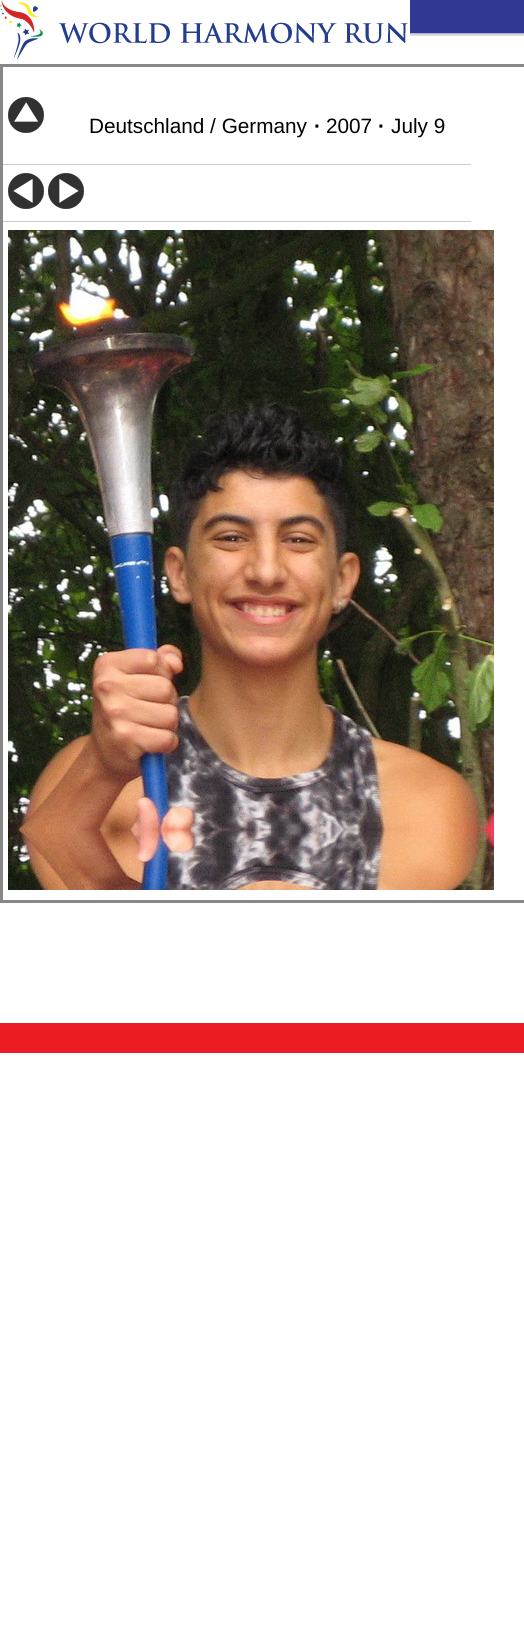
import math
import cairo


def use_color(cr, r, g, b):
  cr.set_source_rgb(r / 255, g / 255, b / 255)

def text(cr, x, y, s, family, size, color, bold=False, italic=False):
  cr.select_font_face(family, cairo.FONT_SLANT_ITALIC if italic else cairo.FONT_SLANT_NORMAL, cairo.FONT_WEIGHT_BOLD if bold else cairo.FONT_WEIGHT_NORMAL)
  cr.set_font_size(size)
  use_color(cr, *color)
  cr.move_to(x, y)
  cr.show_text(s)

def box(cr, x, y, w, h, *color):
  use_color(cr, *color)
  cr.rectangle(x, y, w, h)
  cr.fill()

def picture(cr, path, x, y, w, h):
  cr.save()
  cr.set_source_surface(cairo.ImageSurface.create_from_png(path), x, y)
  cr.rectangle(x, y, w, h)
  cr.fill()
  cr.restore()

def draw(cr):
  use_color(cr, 255, 255, 255)
  cr.paint()
  picture(cr, "img_01.png", 410, 0, 114, 36)
  picture(cr, "img_02.png", 0, 0, 410, 60)
  cr.rectangle(1.5, 65.5, 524, 836)
  use_color(cr, 136, 136, 136)
  cr.set_line_width(3)
  cr.stroke()
  picture(cr, "img_03.png", 8, 97, 36, 36)
  box(cr, 3, 164, 468, 1, 204, 204, 204)
  picture(cr, "img_04.png", 8, 173, 36, 36)
  picture(cr, "img_05.png", 48, 173, 36, 36)
  box(cr, 3, 221, 468, 1, 204, 204, 204)
  picture(cr, "img_06.png", 8, 230, 486, 600)
  picture(cr, "img_07.png", 8, 830, 486, 60)
  box(cr, 0, 1023, 524, 30, 235, 28, 36)
  text(cr, 89, 133, "Deutschland / Germany", "Liberation Sans", 20.75, (0, 0, 0))
  text(cr, 314, 133, "·", "Liberation Sans", 20.75, (0, 0, 0), bold=True)
  text(cr, 326, 133, "2007", "Liberation Sans", 20.75, (0, 0, 0))
  text(cr, 378, 133, "·", "Liberation Sans", 20.75, (0, 0, 0), bold=True)
  text(cr, 391, 133, "July 9", "Liberation Sans", 20.75, (0, 0, 0))


surface = cairo.ImageSurface(cairo.FORMAT_RGB24, 524, 1648)
cr = cairo.Context(surface)
options = cairo.FontOptions()
options.set_hint_metrics(cairo.HINT_METRICS_OFF)
options.set_hint_style(cairo.HINT_STYLE_NONE)
cr.set_font_options(options)
cr.set_miter_limit(4)
draw(cr)
surface.write_to_png("out.png")
